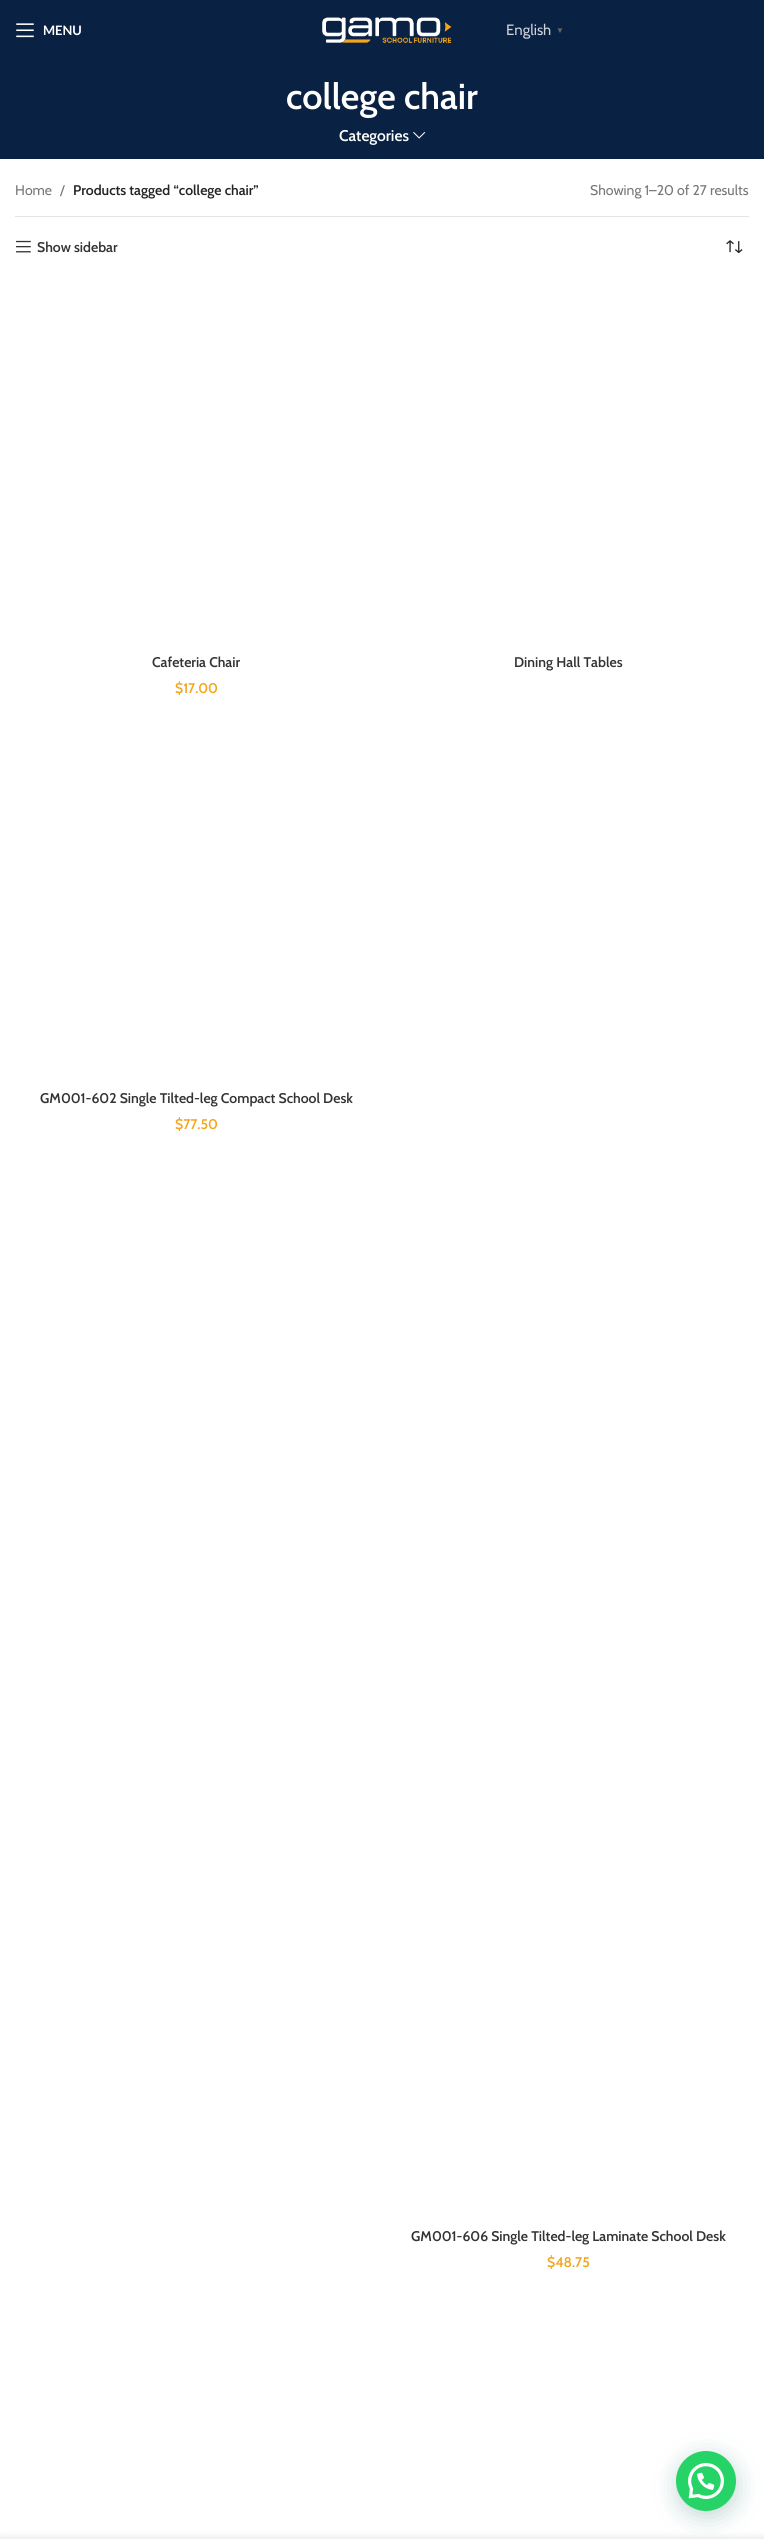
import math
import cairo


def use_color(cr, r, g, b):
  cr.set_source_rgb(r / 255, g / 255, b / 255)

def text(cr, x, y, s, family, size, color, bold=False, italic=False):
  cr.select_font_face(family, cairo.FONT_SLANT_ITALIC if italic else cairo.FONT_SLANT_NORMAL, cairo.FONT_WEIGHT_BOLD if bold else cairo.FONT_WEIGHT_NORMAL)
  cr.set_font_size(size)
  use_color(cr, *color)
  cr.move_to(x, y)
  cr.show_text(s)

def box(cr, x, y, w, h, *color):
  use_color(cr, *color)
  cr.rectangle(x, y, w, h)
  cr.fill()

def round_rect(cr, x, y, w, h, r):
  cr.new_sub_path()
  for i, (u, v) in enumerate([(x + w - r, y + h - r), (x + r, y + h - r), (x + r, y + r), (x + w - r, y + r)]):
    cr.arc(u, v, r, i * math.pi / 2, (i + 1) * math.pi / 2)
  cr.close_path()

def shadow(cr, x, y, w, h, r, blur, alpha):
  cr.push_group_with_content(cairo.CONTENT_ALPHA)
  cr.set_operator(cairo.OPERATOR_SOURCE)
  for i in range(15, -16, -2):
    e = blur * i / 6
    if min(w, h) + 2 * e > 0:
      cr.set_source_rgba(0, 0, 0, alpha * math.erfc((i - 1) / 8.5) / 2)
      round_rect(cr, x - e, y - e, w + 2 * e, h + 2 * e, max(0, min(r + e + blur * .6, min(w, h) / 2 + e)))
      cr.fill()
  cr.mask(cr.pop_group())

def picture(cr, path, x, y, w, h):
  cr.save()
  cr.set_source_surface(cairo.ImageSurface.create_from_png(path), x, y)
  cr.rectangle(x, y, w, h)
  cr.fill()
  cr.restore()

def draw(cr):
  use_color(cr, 255, 255, 255)
  cr.paint()
  box(cr, 0, 0, 764, 159, 9, 33, 67)
  picture(cr, "img_01.png", 16, 23, 18, 15)
  picture(cr, "img_02.png", 322, 17, 130, 26)
  picture(cr, "img_03.png", 413, 132, 13, 7)
  box(cr, 15, 216, 734, 1, 228, 228, 228)
  picture(cr, "img_04.png", 16, 240, 15, 13)
  picture(cr, "img_05.png", 726, 240, 17, 14)
  use_color(cr, 7, 94, 84)
  shadow(cr, 677, 2457, 60, 60, 30, 12, 0.24)
  use_color(cr, 37, 211, 102)
  cr.arc(706, 2481, 30, 0, 2 * math.pi)
  cr.fill()
  picture(cr, "img_06.png", 688, 2463, 36, 36)
  use_color(cr, 0, 0, 0)
  shadow(cr, 0, 2539, 764, 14, 0, 4.5, 0.14)
  text(cr, 43, 35, "MENU", "Lato", 13, (255, 255, 255), bold=True)
  text(cr, 506, 35, "English", "Cabin", 15, (206, 211, 217))
  text(cr, 556, 33, "▼", "Liberation Sans", 8, (102, 102, 102), bold=True)
  text(cr, 286, 109, "college chair", "Cabin SemiBold", 36, (255, 255, 255))
  text(cr, 339, 141, "Categories", "Cabin SemiBold", 15.5, (255, 255, 255))
  text(cr, 15, 195, "Home", "Cabin", 14, (118, 118, 118))
  text(cr, 60, 195, "/", "Cabin", 14, (118, 118, 118))
  text(cr, 73, 195, "Products tagged “college chair”", "Cabin SemiBold", 14, (36, 36, 36))
  text(cr, 590, 195, "Showing 1–20 of 27 results", "Cabin", 14, (118, 118, 118))
  text(cr, 37, 252, "Show sidebar", "Cabin SemiBold", 14, (51, 51, 51))
  text(cr, 152, 667, "Cafeteria Chair", "Cabin SemiBold", 14, (51, 51, 51))
  text(cr, 175, 693, "$17.00", "Cabin SemiBold", 14, (244, 165, 28))
  text(cr, 514, 667, "Dining Hall Tables", "Cabin SemiBold", 14, (51, 51, 51))
  text(cr, 40, 1103, "GM001-602 Single Tilted-leg Compact School Desk", "Cabin SemiBold", 14, (51, 51, 51))
  text(cr, 175, 1129, "$77.50", "Cabin SemiBold", 14, (244, 165, 28))
  text(cr, 411, 2241, "GM001-606 Single Tilted-leg Laminate School Desk", "Cabin SemiBold", 14, (51, 51, 51))
  text(cr, 547, 2267, "$48.75", "Cabin SemiBold", 14, (244, 165, 28))


surface = cairo.ImageSurface(cairo.FORMAT_RGB24, 764, 2539)
cr = cairo.Context(surface)
options = cairo.FontOptions()
options.set_hint_metrics(cairo.HINT_METRICS_OFF)
options.set_hint_style(cairo.HINT_STYLE_NONE)
cr.set_font_options(options)
cr.set_miter_limit(4)
draw(cr)
surface.write_to_png("out.png")
